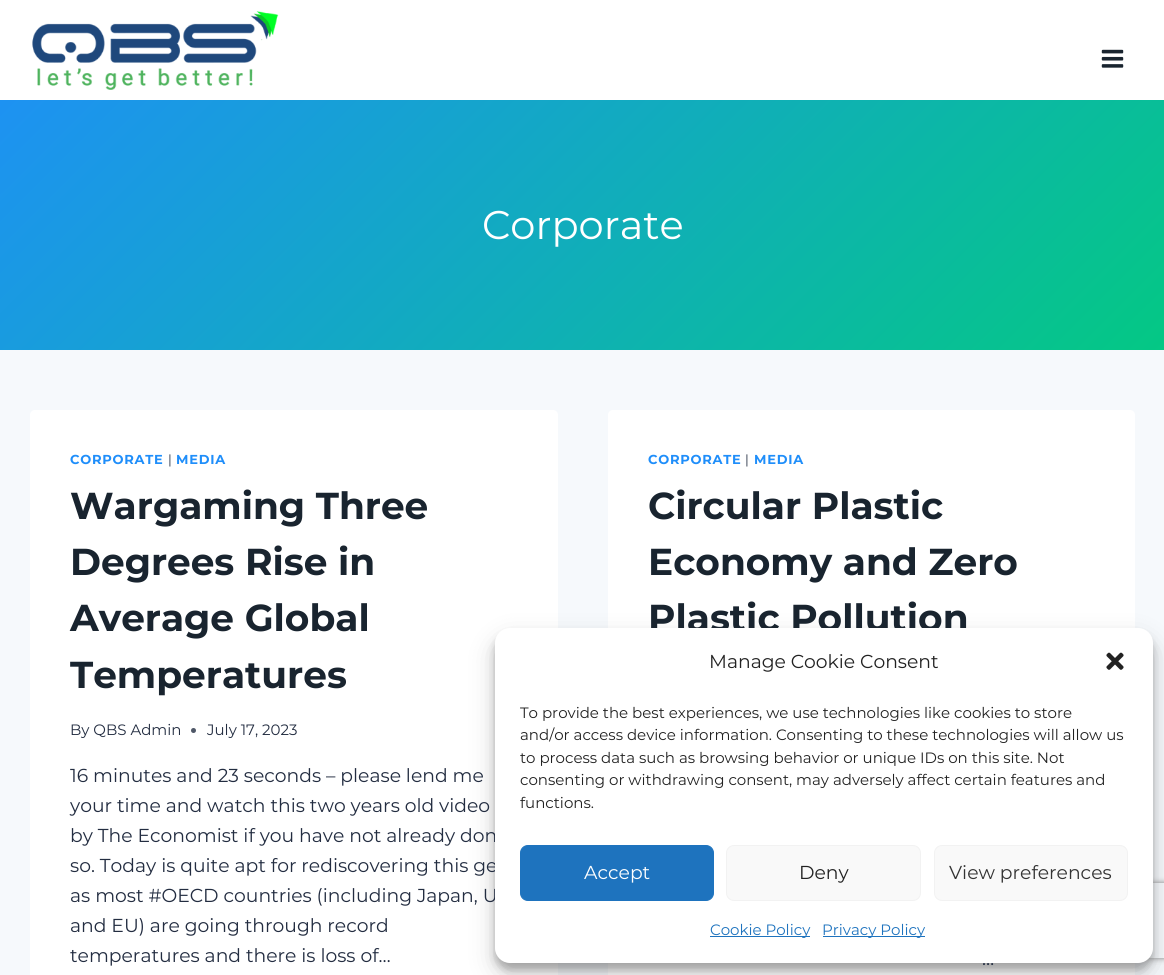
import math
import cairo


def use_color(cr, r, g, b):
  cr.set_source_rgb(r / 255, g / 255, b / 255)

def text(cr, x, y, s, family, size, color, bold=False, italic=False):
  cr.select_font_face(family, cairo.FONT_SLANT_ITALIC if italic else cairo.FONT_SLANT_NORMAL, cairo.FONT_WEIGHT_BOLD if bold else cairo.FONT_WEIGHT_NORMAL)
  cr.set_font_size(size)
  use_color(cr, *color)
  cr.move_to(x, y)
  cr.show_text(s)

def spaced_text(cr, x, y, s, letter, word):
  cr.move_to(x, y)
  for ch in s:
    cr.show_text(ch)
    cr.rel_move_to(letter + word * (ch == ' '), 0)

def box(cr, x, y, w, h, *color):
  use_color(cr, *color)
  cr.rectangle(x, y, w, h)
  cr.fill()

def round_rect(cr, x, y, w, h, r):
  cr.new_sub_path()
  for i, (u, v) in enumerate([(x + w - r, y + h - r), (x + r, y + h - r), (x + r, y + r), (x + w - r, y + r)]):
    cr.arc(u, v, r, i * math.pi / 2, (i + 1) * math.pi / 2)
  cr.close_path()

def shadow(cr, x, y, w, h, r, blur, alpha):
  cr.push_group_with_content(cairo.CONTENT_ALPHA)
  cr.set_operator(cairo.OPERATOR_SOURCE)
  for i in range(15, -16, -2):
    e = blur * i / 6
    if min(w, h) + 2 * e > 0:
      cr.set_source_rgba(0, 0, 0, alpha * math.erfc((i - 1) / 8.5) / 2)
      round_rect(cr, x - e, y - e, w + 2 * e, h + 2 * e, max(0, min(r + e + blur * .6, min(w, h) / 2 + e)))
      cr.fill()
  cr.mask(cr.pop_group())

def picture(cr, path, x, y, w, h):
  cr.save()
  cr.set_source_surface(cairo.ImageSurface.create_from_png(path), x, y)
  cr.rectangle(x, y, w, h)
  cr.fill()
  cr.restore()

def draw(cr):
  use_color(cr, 246, 249, 252)
  cr.paint()
  box(cr, 0, 0, 1164, 100, 255, 255, 255)
  picture(cr, "img_01.png", 32, 11, 247, 79)
  picture(cr, "img_02.png", 1101, 49, 23, 19)
  gradient = cairo.LinearGradient(204, -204, 961, 554)
  gradient.add_color_stop_rgba(0, 0.122, 0.557, 0.98, 1)
  gradient.add_color_stop_rgba(1, 0.016, 0.784, 0.518, 1)
  cr.set_source(gradient)
  cr.rectangle(0, 100, 1164, 250)
  cr.fill()
  use_color(cr, 255, 255, 255)
  round_rect(cr, 30, 410, 528, 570, 5)
  cr.fill()
  use_color(cr, 79, 87, 103)
  cr.arc(193.5, 730.5, 2.5, 0, 2 * math.pi)
  cr.fill()
  use_color(cr, 255, 255, 255)
  round_rect(cr, 608, 410, 527, 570, 5)
  cr.fill()
  use_color(cr, 0, 0, 0)
  shadow(cr, 495, 635, 658, 335, 15, 4, 0.23)
  shadow(cr, 495, 640, 658, 335, 15, 12.5, 0.19)
  cr.save()
  cr.set_fill_rule(cairo.FILL_RULE_EVEN_ODD)
  cr.new_path()
  cr.move_to(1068, 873)
  cr.line_to(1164, 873)
  cr.line_to(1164, 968)
  cr.line_to(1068, 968)
  cr.close_path()
  cr.move_to(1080.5, 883)
  cr.line_to(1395.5, 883)
  cr.curve_to(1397, 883, 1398, 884, 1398, 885.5)
  cr.line_to(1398, 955.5)
  cr.curve_to(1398, 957, 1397, 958, 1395.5, 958)
  cr.line_to(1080.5, 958)
  cr.curve_to(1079, 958, 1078, 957, 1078, 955.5)
  cr.line_to(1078, 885.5)
  cr.curve_to(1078, 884, 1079, 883, 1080.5, 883)
  cr.close_path()
  cr.clip()
  use_color(cr, 128, 128, 128)
  shadow(cr, 1078, 883, 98, 75, 2.5, 3, 1)
  cr.restore()
  text(cr, 482, 239, "Corporate", "Montserrat", 40, (255, 255, 255))
  cr.select_font_face("Montserrat", cairo.FONT_SLANT_NORMAL, cairo.FONT_WEIGHT_BOLD)
  cr.set_font_size(13)
  use_color(cr, 31, 142, 250)
  spaced_text(cr, 70, 464, "CORPORATE", 0.75, 0)
  cr.select_font_face("Montserrat")
  use_color(cr, 35, 45, 65)
  spaced_text(cr, 168, 464, "|", 0.75, 0)
  cr.select_font_face("Montserrat", cairo.FONT_SLANT_NORMAL, cairo.FONT_WEIGHT_BOLD)
  use_color(cr, 31, 142, 250)
  spaced_text(cr, 176, 464, "MEDIA", 0.75, 0)
  text(cr, 70, 519, "Wargaming Three", "Montserrat", 37.5, (25, 36, 47), bold=True)
  text(cr, 70, 575, "Degrees Rise in", "Montserrat", 37.5, (25, 36, 47), bold=True)
  text(cr, 70, 631, "Average Global", "Montserrat", 37.5, (25, 36, 47), bold=True)
  text(cr, 70, 688, "Temperatures", "Montserrat", 37.5, (25, 36, 47), bold=True)
  text(cr, 70, 735, "By QBS Admin", "Montserrat", 15, (35, 45, 65))
  text(cr, 207, 735, "July 17, 2023", "Montserrat", 15, (35, 45, 65))
  text(cr, 70, 782, "16 minutes and 23 seconds – please lend me", "Montserrat", 18.75, (35, 45, 65))
  text(cr, 70, 812, "your time and watch this two years old video", "Montserrat", 18.75, (35, 45, 65))
  text(cr, 70, 842, "by The Economist if you have not already don", "Montserrat", 18.75, (35, 45, 65))
  text(cr, 70, 872, "so. Today is quite apt for rediscovering this ge", "Montserrat", 18.75, (35, 45, 65))
  text(cr, 70, 902, "as most #OECD countries (including Japan, U", "Montserrat", 18.75, (35, 45, 65))
  text(cr, 70, 932, "and EU) are going through record", "Montserrat", 18.75, (35, 45, 65))
  text(cr, 70, 962, "temperatures and there is loss of…", "Montserrat", 18.75, (35, 45, 65))
  cr.select_font_face("Montserrat", cairo.FONT_SLANT_NORMAL, cairo.FONT_WEIGHT_BOLD)
  cr.set_font_size(13)
  use_color(cr, 31, 142, 250)
  spaced_text(cr, 648, 464, "CORPORATE", 0.75, 0)
  cr.select_font_face("Montserrat")
  use_color(cr, 35, 45, 65)
  spaced_text(cr, 745, 464, "|", 0.75, 0)
  cr.select_font_face("Montserrat", cairo.FONT_SLANT_NORMAL, cairo.FONT_WEIGHT_BOLD)
  use_color(cr, 31, 142, 250)
  spaced_text(cr, 754, 464, "MEDIA", 0.75, 0)
  text(cr, 648, 519, "Circular Plastic", "Montserrat", 37.5, (25, 36, 47), bold=True)
  text(cr, 648, 575, "Economy and Zero", "Montserrat", 37.5, (25, 36, 47), bold=True)
  text(cr, 648, 631, "Plastic Pollution", "Montserrat", 37.5, (25, 36, 47), bold=True)
  text(cr, 982, 965, "…", "Montserrat", 18.75, (35, 45, 65))
  use_color(cr, 255, 255, 255)
  round_rect(cr, 495, 628, 658, 335, 15)
  cr.fill()
  text(cr, 709, 668, "Manage Cookie Consent", "Montserrat", 18.75, (34, 34, 34))
  picture(cr, "img_03.png", 1106, 652, 18, 18)
  text(cr, 520, 718, "To provide the best experiences, we use technologies like cookies to store", "Montserrat", 15, (34, 34, 34))
  text(cr, 520, 740, "and/or access device information. Consenting to these technologies will allow us", "Montserrat", 15, (34, 34, 34))
  text(cr, 520, 763, "to process data such as browsing behavior or unique IDs on this site. Not", "Montserrat", 15, (34, 34, 34))
  text(cr, 520, 785, "consenting or withdrawing consent, may adversely affect certain features and", "Montserrat", 15, (34, 34, 34))
  text(cr, 520, 808, "functions.", "Montserrat", 15, (34, 34, 34))
  use_color(cr, 30, 115, 190)
  round_rect(cr, 520.5, 845.5, 193, 55, 7.5)
  cr.fill_preserve()
  cr.set_line_width(1)
  cr.stroke()
  text(cr, 584, 879, "Accept", "Montserrat", 18.75, (255, 255, 255))
  use_color(cr, 249, 249, 249)
  round_rect(cr, 726.5, 845.5, 194, 55, 7.5)
  cr.fill_preserve()
  use_color(cr, 242, 242, 242)
  cr.stroke()
  text(cr, 799, 879, "Deny", "Montserrat", 18.75, (34, 34, 34))
  use_color(cr, 249, 249, 249)
  round_rect(cr, 934.5, 845.5, 193, 55, 7.5)
  cr.fill_preserve()
  use_color(cr, 242, 242, 242)
  cr.stroke()
  text(cr, 949, 879, "View preferences", "Montserrat", 18.75, (51, 51, 51))
  box(cr, 710, 936, 100, 1, 30, 115, 190)
  text(cr, 710, 935, "Cookie Policy", "Montserrat", 15, (30, 115, 190))
  box(cr, 823, 936, 102, 1, 30, 115, 190)
  text(cr, 822, 935, "Privacy Policy", "Montserrat", 15, (30, 115, 190))


surface = cairo.ImageSurface(cairo.FORMAT_RGB24, 1164, 975)
cr = cairo.Context(surface)
options = cairo.FontOptions()
options.set_hint_metrics(cairo.HINT_METRICS_OFF)
options.set_hint_style(cairo.HINT_STYLE_NONE)
cr.set_font_options(options)
cr.set_miter_limit(4)
draw(cr)
surface.write_to_png("out.png")
